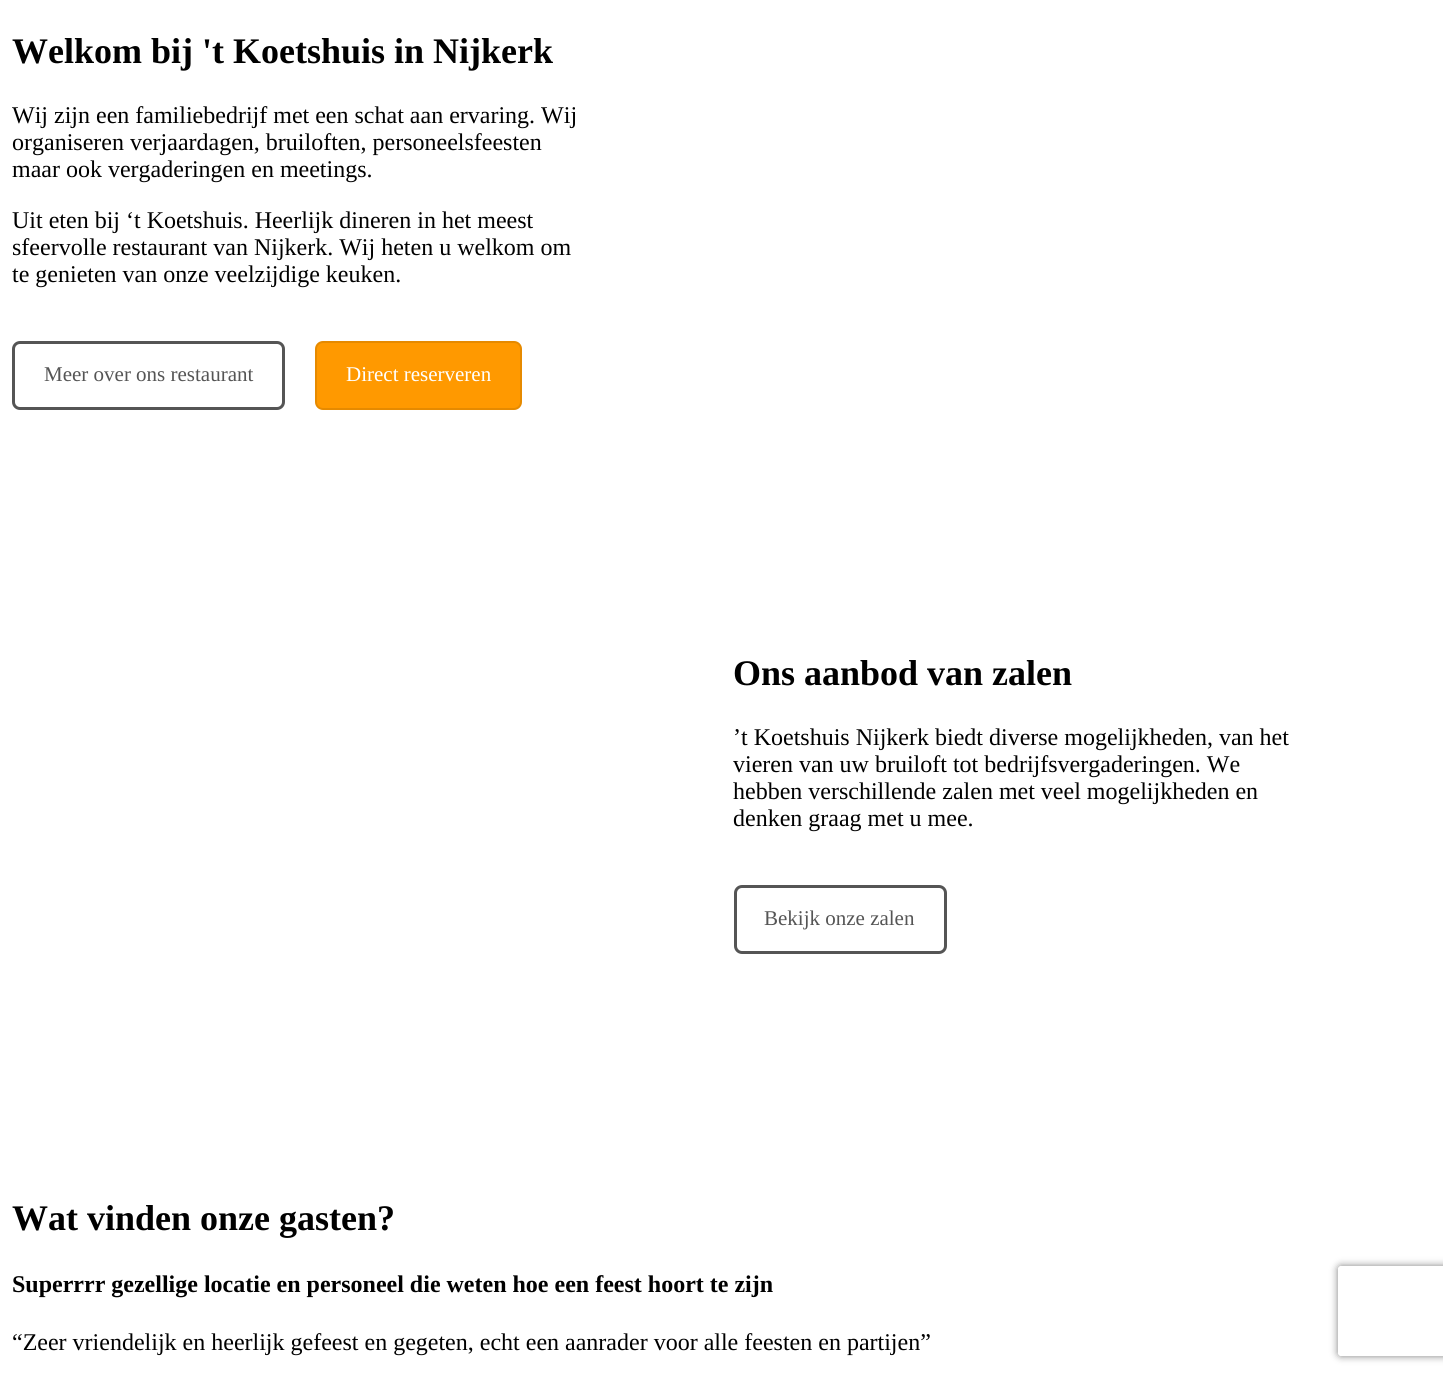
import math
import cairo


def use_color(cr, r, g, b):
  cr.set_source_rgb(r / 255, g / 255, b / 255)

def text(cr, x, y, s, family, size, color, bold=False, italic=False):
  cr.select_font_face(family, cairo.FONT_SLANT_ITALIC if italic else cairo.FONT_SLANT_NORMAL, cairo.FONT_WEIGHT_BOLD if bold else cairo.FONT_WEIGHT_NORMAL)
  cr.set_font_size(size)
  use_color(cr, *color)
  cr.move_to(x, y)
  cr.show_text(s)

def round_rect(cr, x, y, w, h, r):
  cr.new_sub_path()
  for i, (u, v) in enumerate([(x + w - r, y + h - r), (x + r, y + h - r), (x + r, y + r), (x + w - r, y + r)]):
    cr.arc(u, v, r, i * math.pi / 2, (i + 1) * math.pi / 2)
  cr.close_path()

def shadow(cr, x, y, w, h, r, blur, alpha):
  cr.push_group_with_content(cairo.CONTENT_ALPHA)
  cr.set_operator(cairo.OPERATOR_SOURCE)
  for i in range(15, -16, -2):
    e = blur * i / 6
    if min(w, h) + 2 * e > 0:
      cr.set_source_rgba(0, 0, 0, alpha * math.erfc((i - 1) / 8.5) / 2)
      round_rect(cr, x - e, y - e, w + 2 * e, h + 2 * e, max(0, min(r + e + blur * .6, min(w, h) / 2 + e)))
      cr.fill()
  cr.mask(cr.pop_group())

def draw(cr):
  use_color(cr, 255, 255, 255)
  cr.paint()
  round_rect(cr, 13.5, 342.5, 270, 66, 6.5)
  use_color(cr, 85, 85, 85)
  cr.set_line_width(3)
  cr.stroke()
  use_color(cr, 255, 153, 0)
  round_rect(cr, 315, 341, 207, 69, 8)
  cr.fill()
  round_rect(cr, 316, 342, 205, 67, 7)
  cr.set_source_rgba(0, 0, 0, 0.1)
  cr.set_line_width(2)
  cr.stroke()
  round_rect(cr, 735.5, 886.5, 210, 66, 6.5)
  use_color(cr, 85, 85, 85)
  cr.set_line_width(3)
  cr.stroke()
  cr.save()
  cr.set_fill_rule(cairo.FILL_RULE_EVEN_ODD)
  cr.new_path()
  cr.move_to(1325, 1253)
  cr.line_to(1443, 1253)
  cr.line_to(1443, 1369)
  cr.line_to(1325, 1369)
  cr.close_path()
  cr.move_to(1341, 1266)
  cr.line_to(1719, 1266)
  cr.curve_to(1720.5, 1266, 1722, 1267.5, 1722, 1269)
  cr.line_to(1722, 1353)
  cr.curve_to(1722, 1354.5, 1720.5, 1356, 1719, 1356)
  cr.line_to(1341, 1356)
  cr.curve_to(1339.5, 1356, 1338, 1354.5, 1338, 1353)
  cr.line_to(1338, 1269)
  cr.curve_to(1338, 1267.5, 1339.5, 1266, 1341, 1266)
  cr.close_path()
  cr.clip()
  use_color(cr, 128, 128, 128)
  shadow(cr, 1338, 1266, 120, 90, 3, 4, 1)
  cr.restore()
  text(cr, 12, 63, "Welkom bij 't Koetshuis in Nijkerk", "Liberation Serif", 36, (0, 0, 0), bold=True)
  text(cr, 12, 123, "Wij zijn een familiebedrijf met een schat aan ervaring. Wij", "Liberation Serif", 24, (0, 0, 0))
  text(cr, 12, 150, "organiseren verjaardagen, bruiloften, personeelsfeesten", "Liberation Serif", 24, (0, 0, 0))
  text(cr, 12, 177, "maar ook vergaderingen en meetings.", "Liberation Serif", 24, (0, 0, 0))
  text(cr, 12, 228, "Uit eten bij ‘t Koetshuis. Heerlijk dineren in het meest", "Liberation Serif", 24, (0, 0, 0))
  text(cr, 12, 255, "sfeervolle restaurant van Nijkerk. Wij heten u welkom om", "Liberation Serif", 24, (0, 0, 0))
  text(cr, 12, 282, "te genieten van onze veelzijdige keuken.", "Liberation Serif", 24, (0, 0, 0))
  text(cr, 44, 381, "Meer over ons restaurant", "Liberation Serif", 21, (85, 85, 85))
  text(cr, 346, 381, "Direct reserveren", "Liberation Serif", 21, (255, 255, 255))
  text(cr, 733, 685, "Ons aanbod van zalen", "Liberation Serif", 36, (0, 0, 0), bold=True)
  text(cr, 733, 745, "’t Koetshuis Nijkerk biedt diverse mogelijkheden, van het", "Liberation Serif", 24, (0, 0, 0))
  text(cr, 733, 772, "vieren van uw bruiloft tot bedrijfsvergaderingen. We", "Liberation Serif", 24, (0, 0, 0))
  text(cr, 733, 799, "hebben verschillende zalen met veel mogelijkheden en", "Liberation Serif", 24, (0, 0, 0))
  text(cr, 733, 826, "denken graag met u mee.", "Liberation Serif", 24, (0, 0, 0))
  text(cr, 764, 925, "Bekijk onze zalen", "Liberation Serif", 21, (85, 85, 85))
  text(cr, 12, 1230, "Wat vinden onze gasten?", "Liberation Serif", 36, (0, 0, 0), bold=True)
  text(cr, 12, 1292, "Superrrr gezellige locatie en personeel die weten hoe een feest hoort te zijn", "Liberation Serif", 24, (0, 0, 0), bold=True)
  text(cr, 12, 1350, "“Zeer vriendelijk en heerlijk gefeest en gegeten, echt een aanrader voor alle feesten en partijen”", "Liberation Serif", 24, (0, 0, 0))


surface = cairo.ImageSurface(cairo.FORMAT_RGB24, 1443, 1376)
cr = cairo.Context(surface)
options = cairo.FontOptions()
options.set_hint_metrics(cairo.HINT_METRICS_OFF)
options.set_hint_style(cairo.HINT_STYLE_NONE)
cr.set_font_options(options)
cr.set_miter_limit(4)
draw(cr)
surface.write_to_png("out.png")
